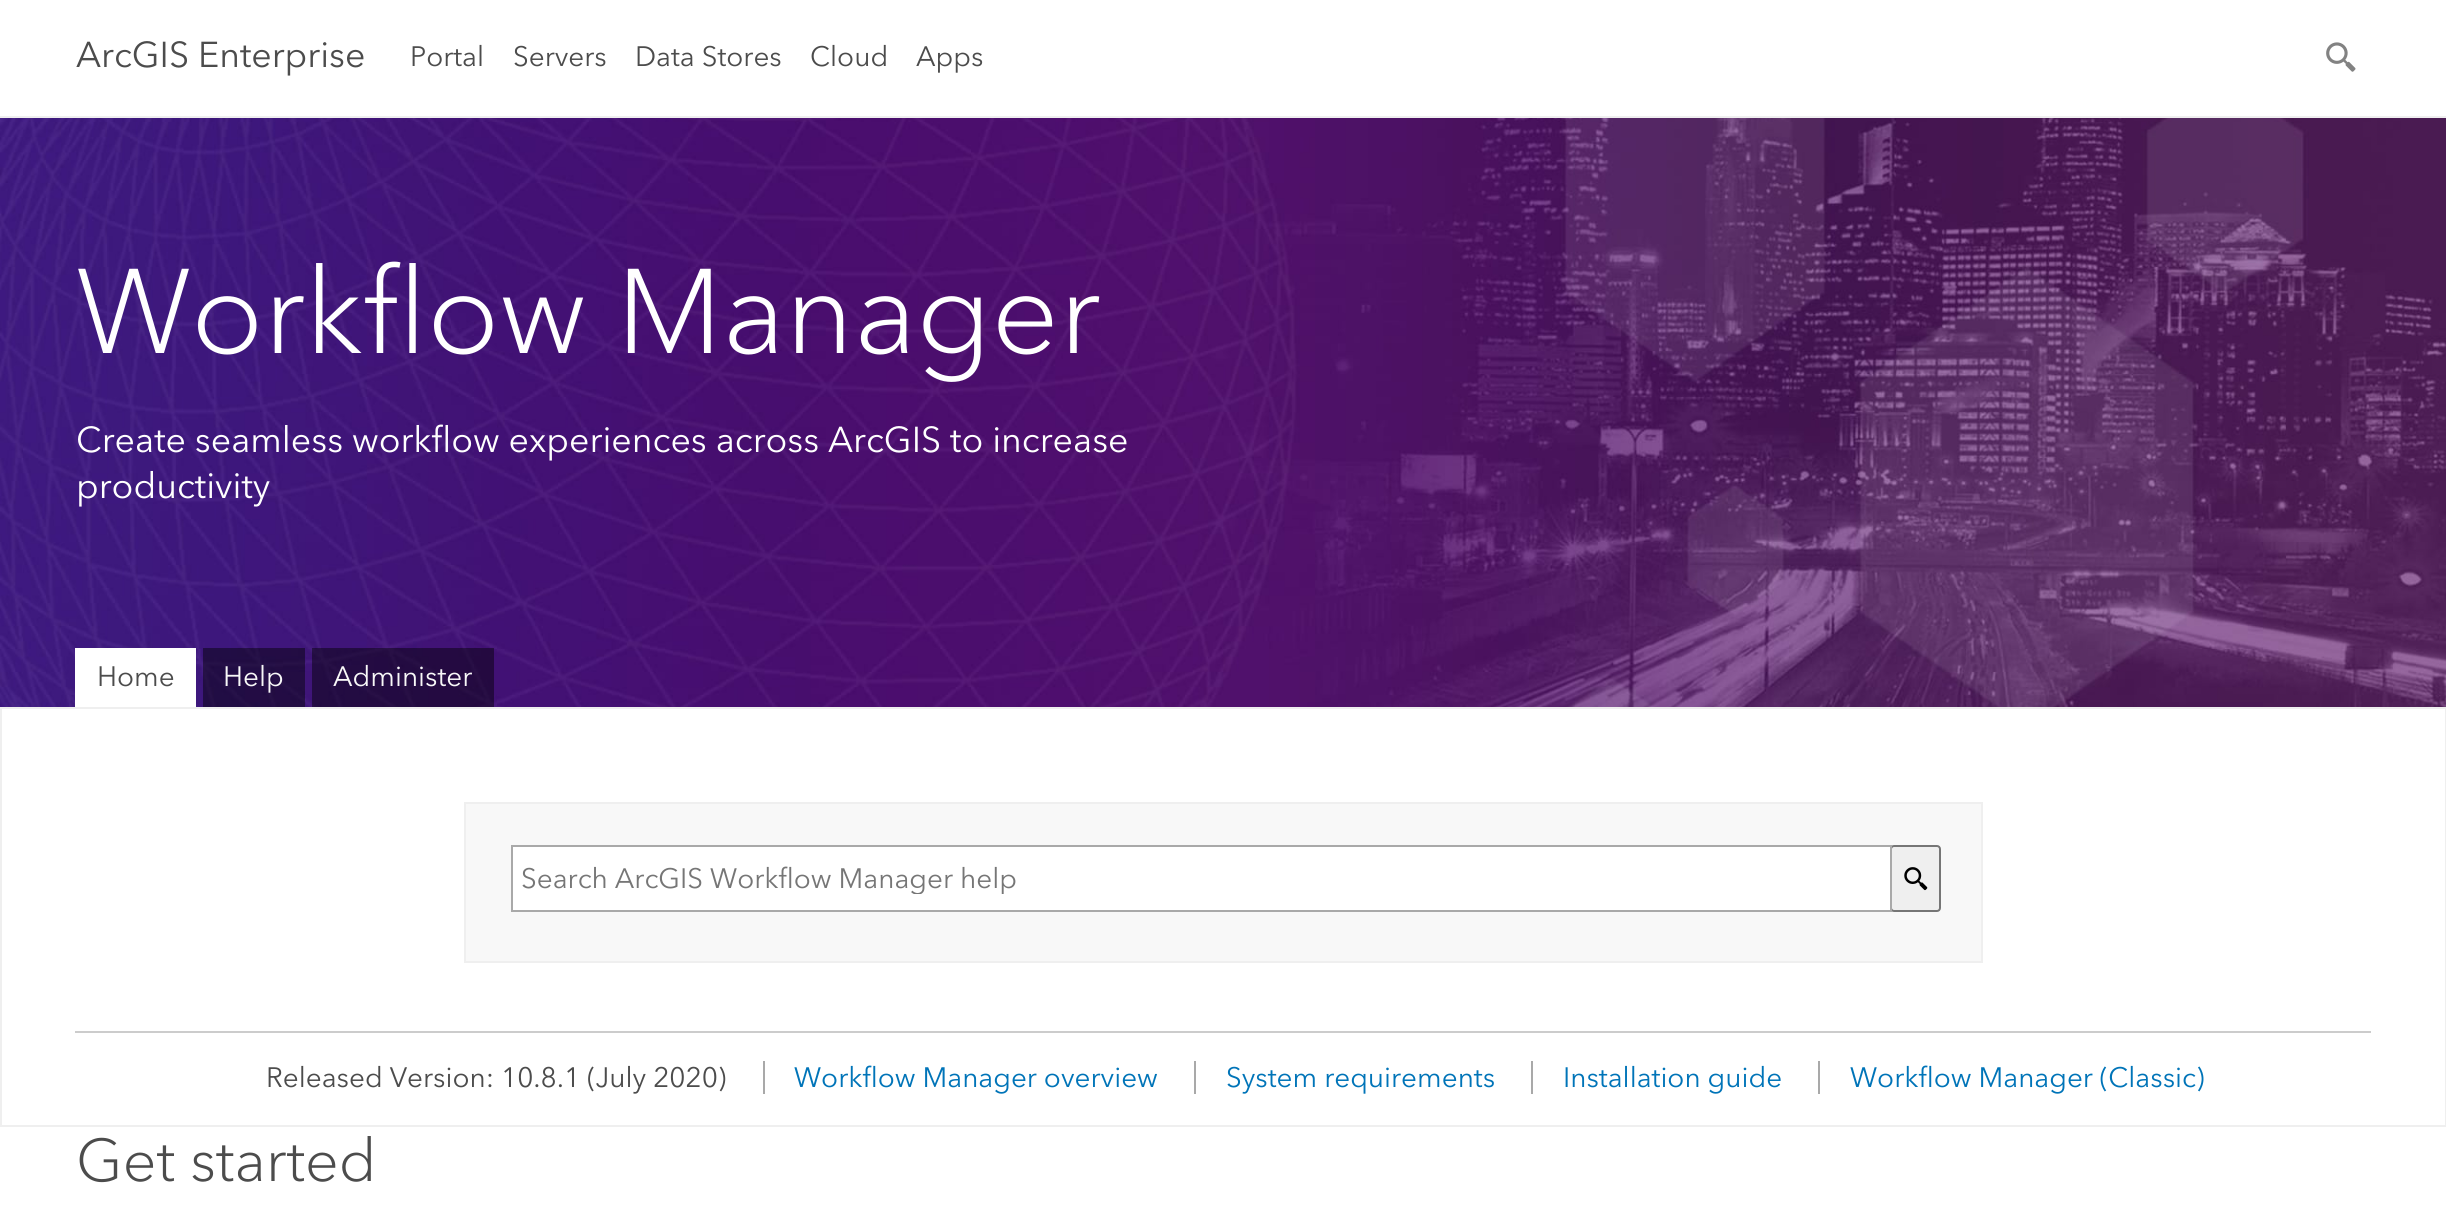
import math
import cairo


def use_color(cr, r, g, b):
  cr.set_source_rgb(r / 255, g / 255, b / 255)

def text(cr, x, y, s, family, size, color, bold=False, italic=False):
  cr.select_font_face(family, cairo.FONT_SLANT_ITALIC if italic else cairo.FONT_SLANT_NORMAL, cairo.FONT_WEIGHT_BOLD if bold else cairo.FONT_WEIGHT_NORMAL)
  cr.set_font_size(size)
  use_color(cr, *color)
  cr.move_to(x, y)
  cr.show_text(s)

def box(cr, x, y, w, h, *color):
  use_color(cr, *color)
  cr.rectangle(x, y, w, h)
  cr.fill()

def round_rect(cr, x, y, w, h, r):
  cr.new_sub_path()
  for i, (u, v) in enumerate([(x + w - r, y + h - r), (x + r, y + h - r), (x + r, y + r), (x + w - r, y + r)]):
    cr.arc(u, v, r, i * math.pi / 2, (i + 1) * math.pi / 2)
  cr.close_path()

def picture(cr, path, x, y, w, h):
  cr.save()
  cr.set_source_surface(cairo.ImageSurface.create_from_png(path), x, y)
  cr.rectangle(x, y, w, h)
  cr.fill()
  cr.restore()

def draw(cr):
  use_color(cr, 255, 255, 255)
  cr.paint()
  box(cr, 0, 116, 2446, 2, 239, 239, 239)
  picture(cr, "img_01.png", 2326, 42, 30, 30)
  picture(cr, "img_02.png", 0, 118, 2446, 589)
  box(cr, 75, 648, 121, 59, 255, 255, 255)
  cr.set_source_rgba(0, 0, 0, 0.45)
  cr.rectangle(203, 648, 102, 59)
  cr.fill()
  cr.rectangle(312, 648, 182, 59)
  cr.fill()
  cr.rectangle(1, 708, 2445, 418)
  use_color(cr, 239, 239, 239)
  cr.stroke()
  use_color(cr, 248, 248, 248)
  cr.rectangle(465, 803, 1517, 159)
  cr.fill_preserve()
  use_color(cr, 239, 239, 239)
  cr.stroke()
  round_rect(cr, 1891, 846, 49, 65, 3)
  cr.fill_preserve()
  use_color(cr, 118, 118, 118)
  cr.stroke()
  use_color(cr, 255, 255, 255)
  cr.rectangle(512, 846, 1379, 65)
  cr.fill_preserve()
  use_color(cr, 169, 169, 169)
  cr.stroke()
  picture(cr, "img_03.png", 1904, 867, 24, 24)
  box(cr, 75, 1031, 2296, 2, 204, 204, 204)
  box(cr, 763, 1061, 2, 33, 169, 169, 169)
  box(cr, 1194, 1061, 2, 33, 169, 169, 169)
  box(cr, 1531, 1061, 2, 33, 169, 169, 169)
  box(cr, 1818, 1061, 2, 33, 169, 169, 169)
  text(cr, 76, 67, "ArcGIS Enterprise", "Avenir Next", 35.75, (76, 76, 76))
  text(cr, 410, 66, "Portal", "Avenir Next", 27.9, (76, 76, 76))
  text(cr, 513, 66, "Servers", "Avenir Next", 27.9, (76, 76, 76))
  text(cr, 635, 66, "Data Stores", "Avenir Next", 27.9, (76, 76, 76))
  text(cr, 810, 66, "Cloud", "Avenir Next", 27.9, (76, 76, 76))
  text(cr, 916, 66, "Apps", "Avenir Next", 27.9, (76, 76, 76))
  text(cr, 76, 353, "Workflow Manager", "Avenir Next Light", 119, (255, 255, 255))
  text(cr, 76, 452, "Create seamless workflow experiences across ArcGIS to increase", "Avenir Next", 35.75, (255, 255, 255))
  text(cr, 76, 498, "productivity", "Avenir Next", 35.75, (255, 255, 255))
  text(cr, 97, 686, "Home", "Avenir Next", 27.9, (76, 76, 76))
  text(cr, 223, 686, "Help", "Avenir Next", 27.9, (248, 248, 248))
  text(cr, 333, 686, "Administer", "Avenir Next", 27.9, (248, 248, 248))
  cr.save()
  cr.rectangle(522, 861, 1331, 33)
  cr.clip()
  text(cr, 521, 888, "Search ArcGIS Workflow Manager help", "Avenir Next", 27.9, (118, 118, 118))
  cr.restore()
  text(cr, 266, 1087, "Released Version: 10.8.1 (July 2020)", "Avenir Next", 27.9, (76, 76, 76))
  text(cr, 794, 1087, "Workflow Manager overview", "Avenir Next", 27.9, (0, 116, 184))
  text(cr, 1226, 1087, "System requirements", "Avenir Next", 27.9, (0, 116, 184))
  text(cr, 1563, 1087, "Installation guide", "Avenir Next", 27.9, (0, 116, 184))
  text(cr, 1850, 1087, "Workflow Manager (Classic)", "Avenir Next", 27.9, (0, 116, 184))
  text(cr, 76, 1181, "Get started", "Avenir Next Light", 59.5, (76, 76, 76))


surface = cairo.ImageSurface(cairo.FORMAT_RGB24, 2446, 1220)
cr = cairo.Context(surface)
options = cairo.FontOptions()
options.set_hint_metrics(cairo.HINT_METRICS_OFF)
options.set_hint_style(cairo.HINT_STYLE_NONE)
cr.set_font_options(options)
cr.set_miter_limit(4)
draw(cr)
surface.write_to_png("out.png")
